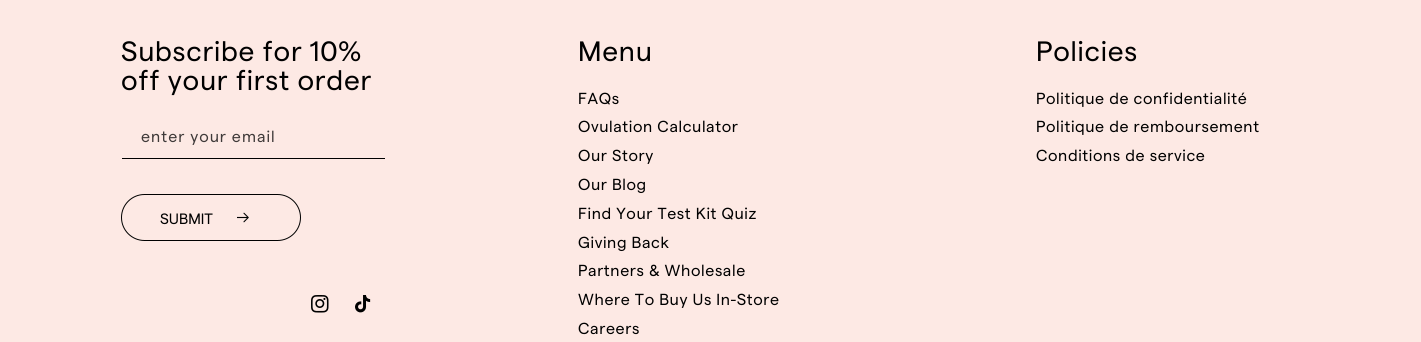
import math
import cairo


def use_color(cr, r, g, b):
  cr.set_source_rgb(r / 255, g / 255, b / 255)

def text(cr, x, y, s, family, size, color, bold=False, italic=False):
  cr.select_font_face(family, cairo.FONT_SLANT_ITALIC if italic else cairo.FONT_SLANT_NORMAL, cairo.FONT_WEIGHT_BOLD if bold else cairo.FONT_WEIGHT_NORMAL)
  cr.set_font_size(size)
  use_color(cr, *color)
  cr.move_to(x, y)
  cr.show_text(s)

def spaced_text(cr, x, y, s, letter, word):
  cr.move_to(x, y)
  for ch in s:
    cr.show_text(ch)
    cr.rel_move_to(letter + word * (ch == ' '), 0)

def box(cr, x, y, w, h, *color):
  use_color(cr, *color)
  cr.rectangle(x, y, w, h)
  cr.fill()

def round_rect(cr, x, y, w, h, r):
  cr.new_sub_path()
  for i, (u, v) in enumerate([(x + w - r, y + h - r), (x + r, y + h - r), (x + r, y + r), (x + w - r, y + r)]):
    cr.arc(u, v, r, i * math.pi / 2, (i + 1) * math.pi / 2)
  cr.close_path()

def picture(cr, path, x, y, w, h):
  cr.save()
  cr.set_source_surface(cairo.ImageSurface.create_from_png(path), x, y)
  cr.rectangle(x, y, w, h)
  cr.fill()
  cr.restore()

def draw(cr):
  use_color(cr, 253, 233, 228)
  cr.paint()
  box(cr, 122, 158, 263, 1, 0, 0, 0)
  round_rect(cr, 121.5, 194.5, 179, 46, 23)
  cr.set_line_width(1)
  cr.stroke()
  picture(cr, "img_01.png", 237, 212, 12, 11)
  picture(cr, "img_02.png", 311, 295, 18, 18)
  picture(cr, "img_03.png", 355, 295, 16, 18)
  cr.select_font_face("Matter")
  cr.set_font_size(28)
  spaced_text(cr, 121, 61, "Subscribe for 10%", 0.75, 0)
  spaced_text(cr, 121, 90, "off your first order", 0.75, 0)
  cr.set_font_size(16)
  use_color(cr, 63, 58, 57)
  spaced_text(cr, 141, 142, "enter your email", 1, 0)
  text(cr, 160, 224, "SUBMIT", "Matter", 15, (0, 0, 0))
  cr.set_font_size(28)
  spaced_text(cr, 578, 61, "Menu", 0.75, 0)
  cr.set_font_size(16)
  spaced_text(cr, 578, 104, "FAQs", 0.6, 0)
  spaced_text(cr, 578, 132, "Ovulation Calculator", 0.6, 0)
  spaced_text(cr, 578, 161, "Our Story", 0.6, 0)
  spaced_text(cr, 578, 190, "Our Blog", 0.6, 0)
  spaced_text(cr, 578, 219, "Find Your Test Kit Quiz", 0.6, 0)
  spaced_text(cr, 578, 248, "Giving Back", 0.6, 0)
  spaced_text(cr, 578, 276, "Partners & Wholesale", 0.6, 0)
  spaced_text(cr, 578, 305, "Where To Buy Us In-Store", 0.6, 0)
  spaced_text(cr, 578, 334, "Careers", 0.6, 0)
  cr.set_font_size(28)
  spaced_text(cr, 1036, 61, "Policies", 0.75, 0)
  cr.set_font_size(16)
  spaced_text(cr, 1036, 104, "Politique de confidentialité", 0.6, 0)
  spaced_text(cr, 1036, 132, "Politique de remboursement", 0.6, 0)
  spaced_text(cr, 1036, 161, "Conditions de service", 0.6, 0)


surface = cairo.ImageSurface(cairo.FORMAT_RGB24, 1421, 342)
cr = cairo.Context(surface)
options = cairo.FontOptions()
options.set_hint_metrics(cairo.HINT_METRICS_OFF)
options.set_hint_style(cairo.HINT_STYLE_NONE)
cr.set_font_options(options)
cr.set_miter_limit(4)
draw(cr)
surface.write_to_png("out.png")
